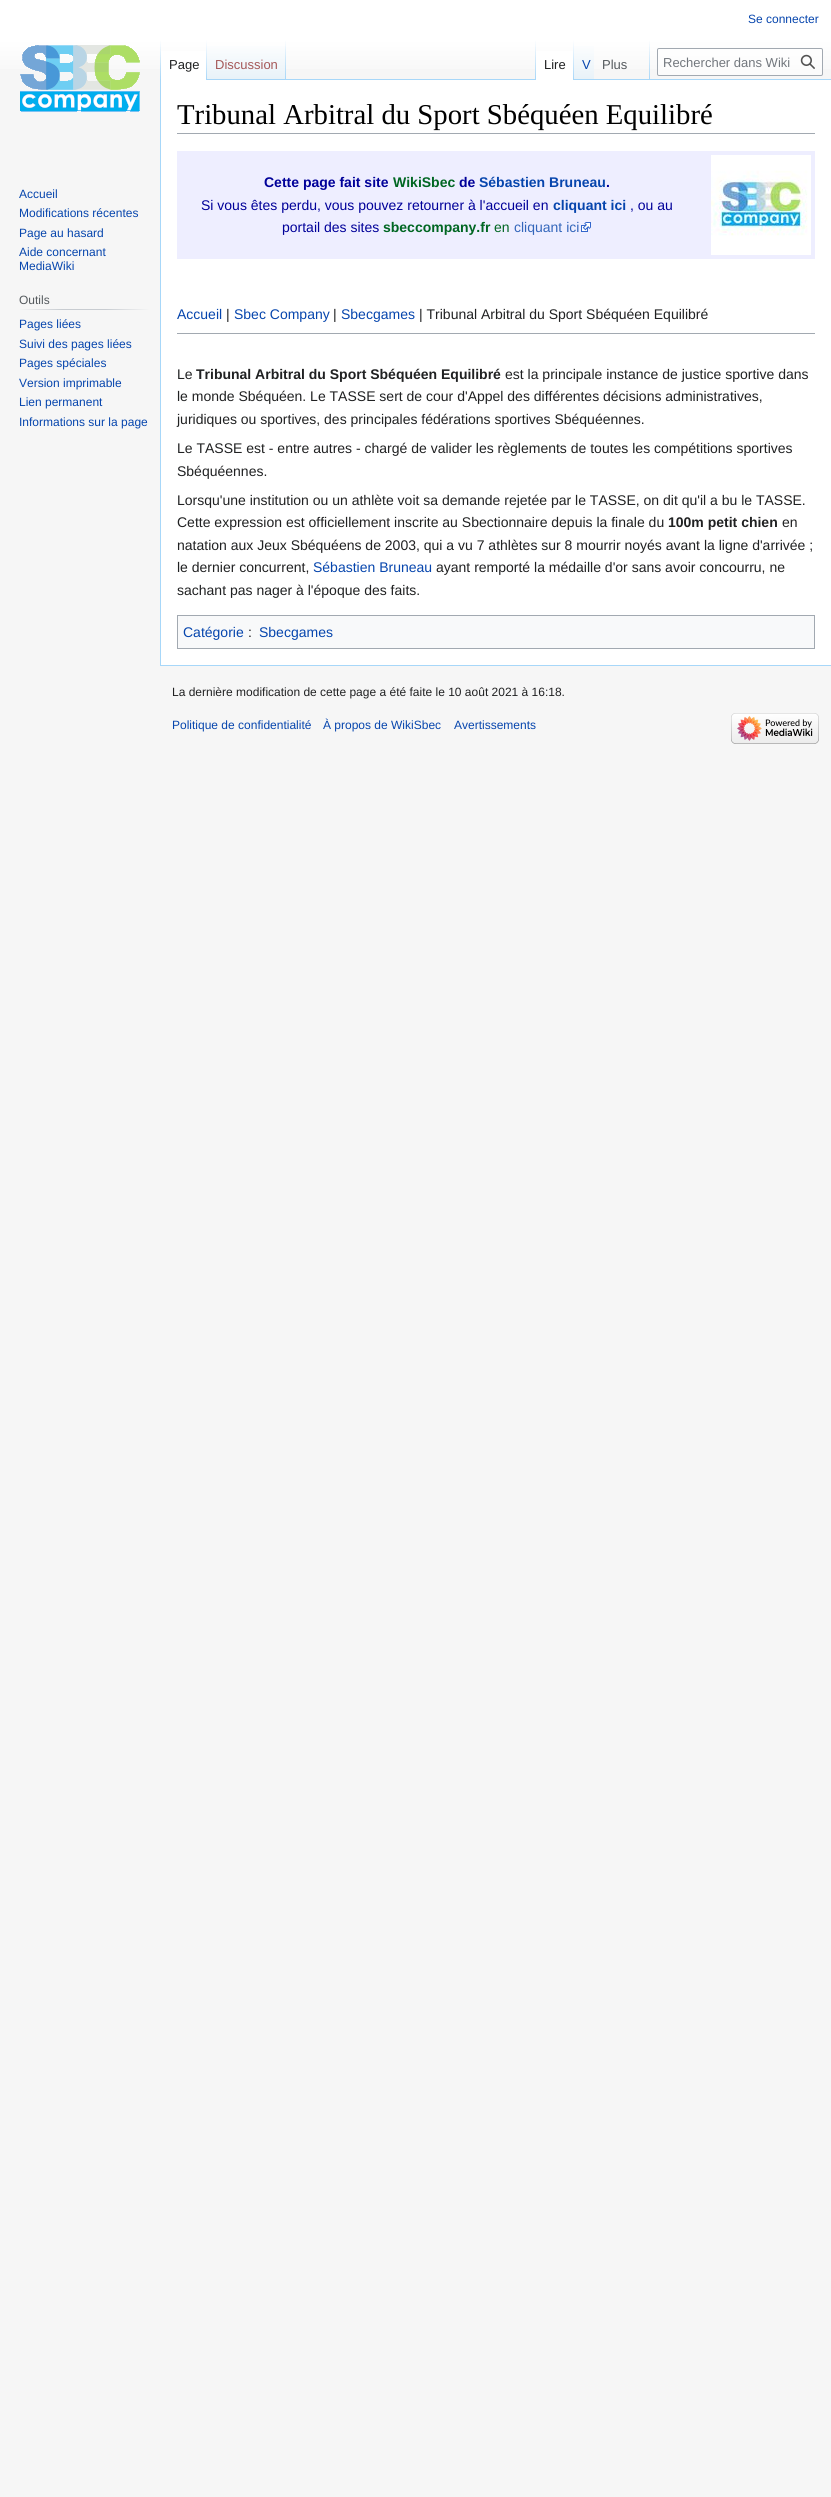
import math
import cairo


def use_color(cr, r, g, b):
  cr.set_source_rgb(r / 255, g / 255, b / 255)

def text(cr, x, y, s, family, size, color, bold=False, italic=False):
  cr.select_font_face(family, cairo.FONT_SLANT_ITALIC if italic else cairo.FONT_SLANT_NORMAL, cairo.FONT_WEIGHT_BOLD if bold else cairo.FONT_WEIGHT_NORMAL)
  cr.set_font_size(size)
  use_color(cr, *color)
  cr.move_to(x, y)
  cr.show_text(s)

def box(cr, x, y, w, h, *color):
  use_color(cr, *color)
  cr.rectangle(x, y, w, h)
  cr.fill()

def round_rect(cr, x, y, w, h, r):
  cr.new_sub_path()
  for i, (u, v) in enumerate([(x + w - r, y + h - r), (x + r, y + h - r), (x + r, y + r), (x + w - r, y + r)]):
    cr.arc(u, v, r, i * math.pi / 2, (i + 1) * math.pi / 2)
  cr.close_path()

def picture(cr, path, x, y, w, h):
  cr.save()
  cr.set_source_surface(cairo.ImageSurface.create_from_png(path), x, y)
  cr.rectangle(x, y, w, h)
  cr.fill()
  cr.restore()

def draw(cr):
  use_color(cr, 246, 246, 246)
  cr.paint()
  gradient = cairo.LinearGradient(416, 0, 416, 80)
  gradient.add_color_stop_rgba(0.5, 1, 1, 1, 1)
  gradient.add_color_stop_rgba(1, 0.965, 0.965, 0.965, 1)
  cr.set_source(gradient)
  cr.rectangle(0, 0, 831, 69)
  cr.fill()
  box(cr, 160, 665, 671, 1, 167, 215, 249)
  box(cr, 160, 79, 1, 587, 167, 215, 249)
  gradient = cairo.LinearGradient(161, 40, 161, 80)
  gradient.add_color_stop_rgba(0, 0.655, 0.843, 0.976, 0)
  gradient.add_color_stop_rgba(1, 0.655, 0.843, 0.976, 1)
  cr.set_source(gradient)
  cr.rectangle(160, 40, 1, 40)
  cr.fill()
  box(cr, 161, 51, 45, 29, 255, 255, 255)
  gradient = cairo.LinearGradient(207, 40, 207, 80)
  gradient.add_color_stop_rgba(0, 1, 1, 1, 1)
  gradient.add_color_stop_rgba(1, 0.655, 0.843, 0.976, 1)
  cr.set_source(gradient)
  cr.rectangle(206, 40, 1, 40)
  cr.fill()
  gradient = cairo.LinearGradient(247, 80, 247, 40)
  gradient.add_color_stop_rgba(0, 0.467, 0.757, 0.965, 1)
  gradient.add_color_stop_rgba(0.03, 0.91, 0.949, 0.973, 1)
  gradient.add_color_stop_rgba(1, 1, 1, 1, 1)
  cr.set_source(gradient)
  cr.rectangle(207, 46, 79, 34)
  cr.fill()
  gradient = cairo.LinearGradient(286, 40, 286, 80)
  gradient.add_color_stop_rgba(0, 0.655, 0.843, 0.976, 0)
  gradient.add_color_stop_rgba(1, 0.655, 0.843, 0.976, 1)
  cr.set_source(gradient)
  cr.rectangle(285, 40, 1, 40)
  cr.fill()
  box(cr, 286, 79, 545, 1, 167, 215, 249)
  gradient = cairo.LinearGradient(536, 40, 536, 80)
  gradient.add_color_stop_rgba(0, 0.655, 0.843, 0.976, 0)
  gradient.add_color_stop_rgba(1, 0.655, 0.843, 0.976, 1)
  cr.set_source(gradient)
  cr.rectangle(535, 40, 1, 40)
  cr.fill()
  box(cr, 536, 51, 37, 29, 255, 255, 255)
  gradient = cairo.LinearGradient(574, 40, 574, 80)
  gradient.add_color_stop_rgba(0, 1, 1, 1, 1)
  gradient.add_color_stop_rgba(1, 0.655, 0.843, 0.976, 1)
  cr.set_source(gradient)
  cr.rectangle(573, 40, 1, 40)
  cr.fill()
  gradient = cairo.LinearGradient(584, 80, 584, 40)
  gradient.add_color_stop_rgba(0, 0.467, 0.757, 0.965, 1)
  gradient.add_color_stop_rgba(0.03, 0.91, 0.949, 0.973, 1)
  gradient.add_color_stop_rgba(1, 1, 1, 1, 1)
  cr.set_source(gradient)
  cr.rectangle(574, 46, 20, 33)
  cr.fill()
  gradient = cairo.LinearGradient(650, 40, 650, 80)
  gradient.add_color_stop_rgba(0, 0.655, 0.843, 0.976, 0)
  gradient.add_color_stop_rgba(1, 0.655, 0.843, 0.976, 1)
  cr.set_source(gradient)
  cr.rectangle(649, 40, 1, 40)
  cr.fill()
  cr.set_source_rgba(1, 1, 1, 0.5)
  round_rect(cr, 657.5, 48.5, 165, 27, 1.5)
  cr.fill_preserve()
  use_color(cr, 162, 169, 177)
  cr.set_line_width(1)
  cr.stroke()
  picture(cr, "img_01.png", 800, 54, 15, 15)
  picture(cr, "img_02.png", 20, 45, 120, 67)
  gradient = cairo.LinearGradient(19, 310, 150, 310)
  gradient.add_color_stop_rgba(0, 0.965, 0.965, 0.965, 1)
  gradient.add_color_stop_rgba(0.33, 0.784, 0.8, 0.82, 1)
  gradient.add_color_stop_rgba(0.66, 0.784, 0.8, 0.82, 1)
  gradient.add_color_stop_rgba(1, 0.965, 0.965, 0.965, 1)
  cr.set_source(gradient)
  cr.rectangle(19, 309, 131, 1)
  cr.fill()
  box(cr, 161, 80, 670, 585, 255, 255, 255)
  box(cr, 177, 133, 638, 1, 162, 169, 177)
  box(cr, 177, 151, 638, 108, 238, 238, 255)
  picture(cr, "img_03.png", 581, 222, 10, 10)
  picture(cr, "img_04.png", 711, 155, 100, 100)
  box(cr, 177, 333, 638, 1, 162, 169, 177)
  use_color(cr, 248, 249, 250)
  cr.rectangle(177.5, 615.5, 637, 33)
  cr.fill_preserve()
  use_color(cr, 162, 169, 177)
  cr.stroke()
  picture(cr, "img_05.png", 731, 713, 88, 31)
  text(cr, 748, 23, "Se connecter", "Liberation Sans", 12, (6, 69, 173))
  text(cr, 169, 69, "Page", "Liberation Sans", 13, (32, 33, 34))
  text(cr, 215, 69, "Discussion", "Liberation Sans", 13, (165, 88, 88))
  text(cr, 544, 69, "Lire", "Liberation Sans", 13, (32, 33, 34))
  text(cr, 582, 69, "V", "Liberation Sans", 13, (6, 69, 173))
  text(cr, 602, 69, "Plus", "Liberation Sans", 13, (84, 89, 93))
  text(cr, 663, 67, "Rechercher dans Wiki", "Liberation Sans", 13, (114, 119, 125))
  text(cr, 19, 198, "Accueil", "Liberation Sans", 12, (6, 69, 173))
  text(cr, 19, 217, "Modifications récentes", "Liberation Sans", 12, (6, 69, 173))
  text(cr, 19, 237, "Page au hasard", "Liberation Sans", 12, (6, 69, 173))
  text(cr, 19, 256, "Aide concernant", "Liberation Sans", 12, (6, 69, 173))
  text(cr, 19, 270, "MediaWiki", "Liberation Sans", 12, (6, 69, 173))
  text(cr, 19, 304, "Outils", "Liberation Sans", 12, (84, 89, 93))
  text(cr, 19, 328, "Pages liées", "Liberation Sans", 12, (6, 69, 173))
  text(cr, 19, 348, "Suivi des pages liées", "Liberation Sans", 12, (6, 69, 173))
  text(cr, 19, 367, "Pages spéciales", "Liberation Sans", 12, (6, 69, 173))
  text(cr, 19, 387, "Version imprimable", "Liberation Sans", 12, (6, 69, 173))
  text(cr, 19, 406, "Lien permanent", "Liberation Sans", 12, (6, 69, 173))
  text(cr, 19, 426, "Informations sur la page", "Liberation Sans", 12, (6, 69, 173))
  text(cr, 177, 124, "Tribunal Arbitral du Sport Sbéquéen Equilibré", "Liberation Serif", 28.75, (0, 0, 0))
  text(cr, 264, 187, "Cette page fait site", "Liberation Sans", 14, (0, 0, 153), bold=True)
  text(cr, 393, 187, "WikiSbec", "Liberation Sans", 14, (0, 102, 34), bold=True)
  text(cr, 459, 187, "de", "Liberation Sans", 14, (0, 0, 153), bold=True)
  text(cr, 479, 187, "Sébastien Bruneau", "Liberation Sans", 14, (6, 69, 173), bold=True)
  text(cr, 606, 187, ".", "Liberation Sans", 14, (0, 0, 153), bold=True)
  text(cr, 201, 210, "Si vous êtes perdu, vous pouvez retourner à l'accueil en", "Liberation Sans", 14, (0, 0, 153))
  text(cr, 553, 210, "cliquant ici", "Liberation Sans", 14, (6, 69, 173), bold=True)
  text(cr, 630, 210, ", ou au", "Liberation Sans", 14, (0, 0, 153))
  text(cr, 282, 232, "portail des sites", "Liberation Sans", 14, (0, 0, 153))
  text(cr, 383, 232, "sbeccompany.fr", "Liberation Sans", 14, (0, 102, 34), bold=True)
  text(cr, 494, 232, "en", "Liberation Sans", 14, (0, 102, 34))
  text(cr, 514, 232, "cliquant ici", "Liberation Sans", 14, (51, 102, 187))
  text(cr, 177, 319, "Accueil", "Liberation Sans", 14, (6, 69, 173))
  text(cr, 226, 319, "|", "Liberation Sans", 14, (32, 33, 34))
  text(cr, 234, 319, "Sbec Company", "Liberation Sans", 14, (6, 69, 173))
  text(cr, 333, 319, "|", "Liberation Sans", 14, (32, 33, 34))
  text(cr, 341, 319, "Sbecgames", "Liberation Sans", 14, (6, 69, 173))
  text(cr, 419, 319, "| Tribunal Arbitral du Sport Sbéquéen Equilibré", "Liberation Sans", 14, (32, 33, 34))
  text(cr, 177, 379, "Le", "Liberation Sans", 14, (32, 33, 34))
  text(cr, 196, 379, "Tribunal Arbitral du Sport Sbéquéen Equilibré", "Liberation Sans", 14, (32, 33, 34), bold=True)
  text(cr, 505, 379, "est la principale instance de justice sportive dans", "Liberation Sans", 14, (32, 33, 34))
  text(cr, 177, 401, "le monde Sbéquéen. Le TASSE sert de cour d'Appel des différentes décisions administratives,", "Liberation Sans", 14, (32, 33, 34))
  text(cr, 177, 424, "juridiques ou sportives, des principales fédérations sportives Sbéquéennes.", "Liberation Sans", 14, (32, 33, 34))
  text(cr, 177, 453, "Le TASSE est - entre autres - chargé de valider les règlements de toutes les compétitions sportives", "Liberation Sans", 14, (32, 33, 34))
  text(cr, 177, 476, "Sbéquéennes.", "Liberation Sans", 14, (32, 33, 34))
  text(cr, 177, 505, "Lorsqu'une institution ou un athlète voit sa demande rejetée par le TASSE, on dit qu'il a bu le TASSE.", "Liberation Sans", 14, (32, 33, 34))
  text(cr, 177, 527, "Cette expression est officiellement inscrite au Sbectionnaire depuis la finale du", "Liberation Sans", 14, (32, 33, 34))
  text(cr, 668, 527, "100m petit chien", "Liberation Sans", 14, (32, 33, 34), bold=True)
  text(cr, 782, 527, "en", "Liberation Sans", 14, (32, 33, 34))
  text(cr, 177, 550, "natation aux Jeux Sbéquéens de 2003, qui a vu 7 athlètes sur 8 mourrir noyés avant la ligne d'arrivée ;", "Liberation Sans", 14, (32, 33, 34))
  text(cr, 177, 572, "le dernier concurrent,", "Liberation Sans", 14, (32, 33, 34))
  text(cr, 313, 572, "Sébastien Bruneau", "Liberation Sans", 14, (6, 69, 173))
  text(cr, 436, 572, "ayant remporté la médaille d'or sans avoir concourru, ne", "Liberation Sans", 14, (32, 33, 34))
  text(cr, 177, 595, "sachant pas nager à l'époque des faits.", "Liberation Sans", 14, (32, 33, 34))
  text(cr, 183, 637, "Catégorie", "Liberation Sans", 14, (6, 69, 173))
  text(cr, 248, 637, ":", "Liberation Sans", 14, (32, 33, 34))
  text(cr, 259, 637, "Sbecgames", "Liberation Sans", 14, (6, 69, 173))
  text(cr, 172, 696, "La dernière modification de cette page a été faite le 10 août 2021 à 16:18.", "Liberation Sans", 12, (32, 33, 34))
  text(cr, 172, 729, "Politique de confidentialité", "Liberation Sans", 12, (6, 69, 173))
  text(cr, 323, 729, "À propos de WikiSbec", "Liberation Sans", 12, (6, 69, 173))
  text(cr, 454, 729, "Avertissements", "Liberation Sans", 12, (6, 69, 173))


surface = cairo.ImageSurface(cairo.FORMAT_RGB24, 831, 2497)
cr = cairo.Context(surface)
options = cairo.FontOptions()
options.set_hint_metrics(cairo.HINT_METRICS_OFF)
options.set_hint_style(cairo.HINT_STYLE_NONE)
cr.set_font_options(options)
cr.set_miter_limit(4)
draw(cr)
surface.write_to_png("out.png")
